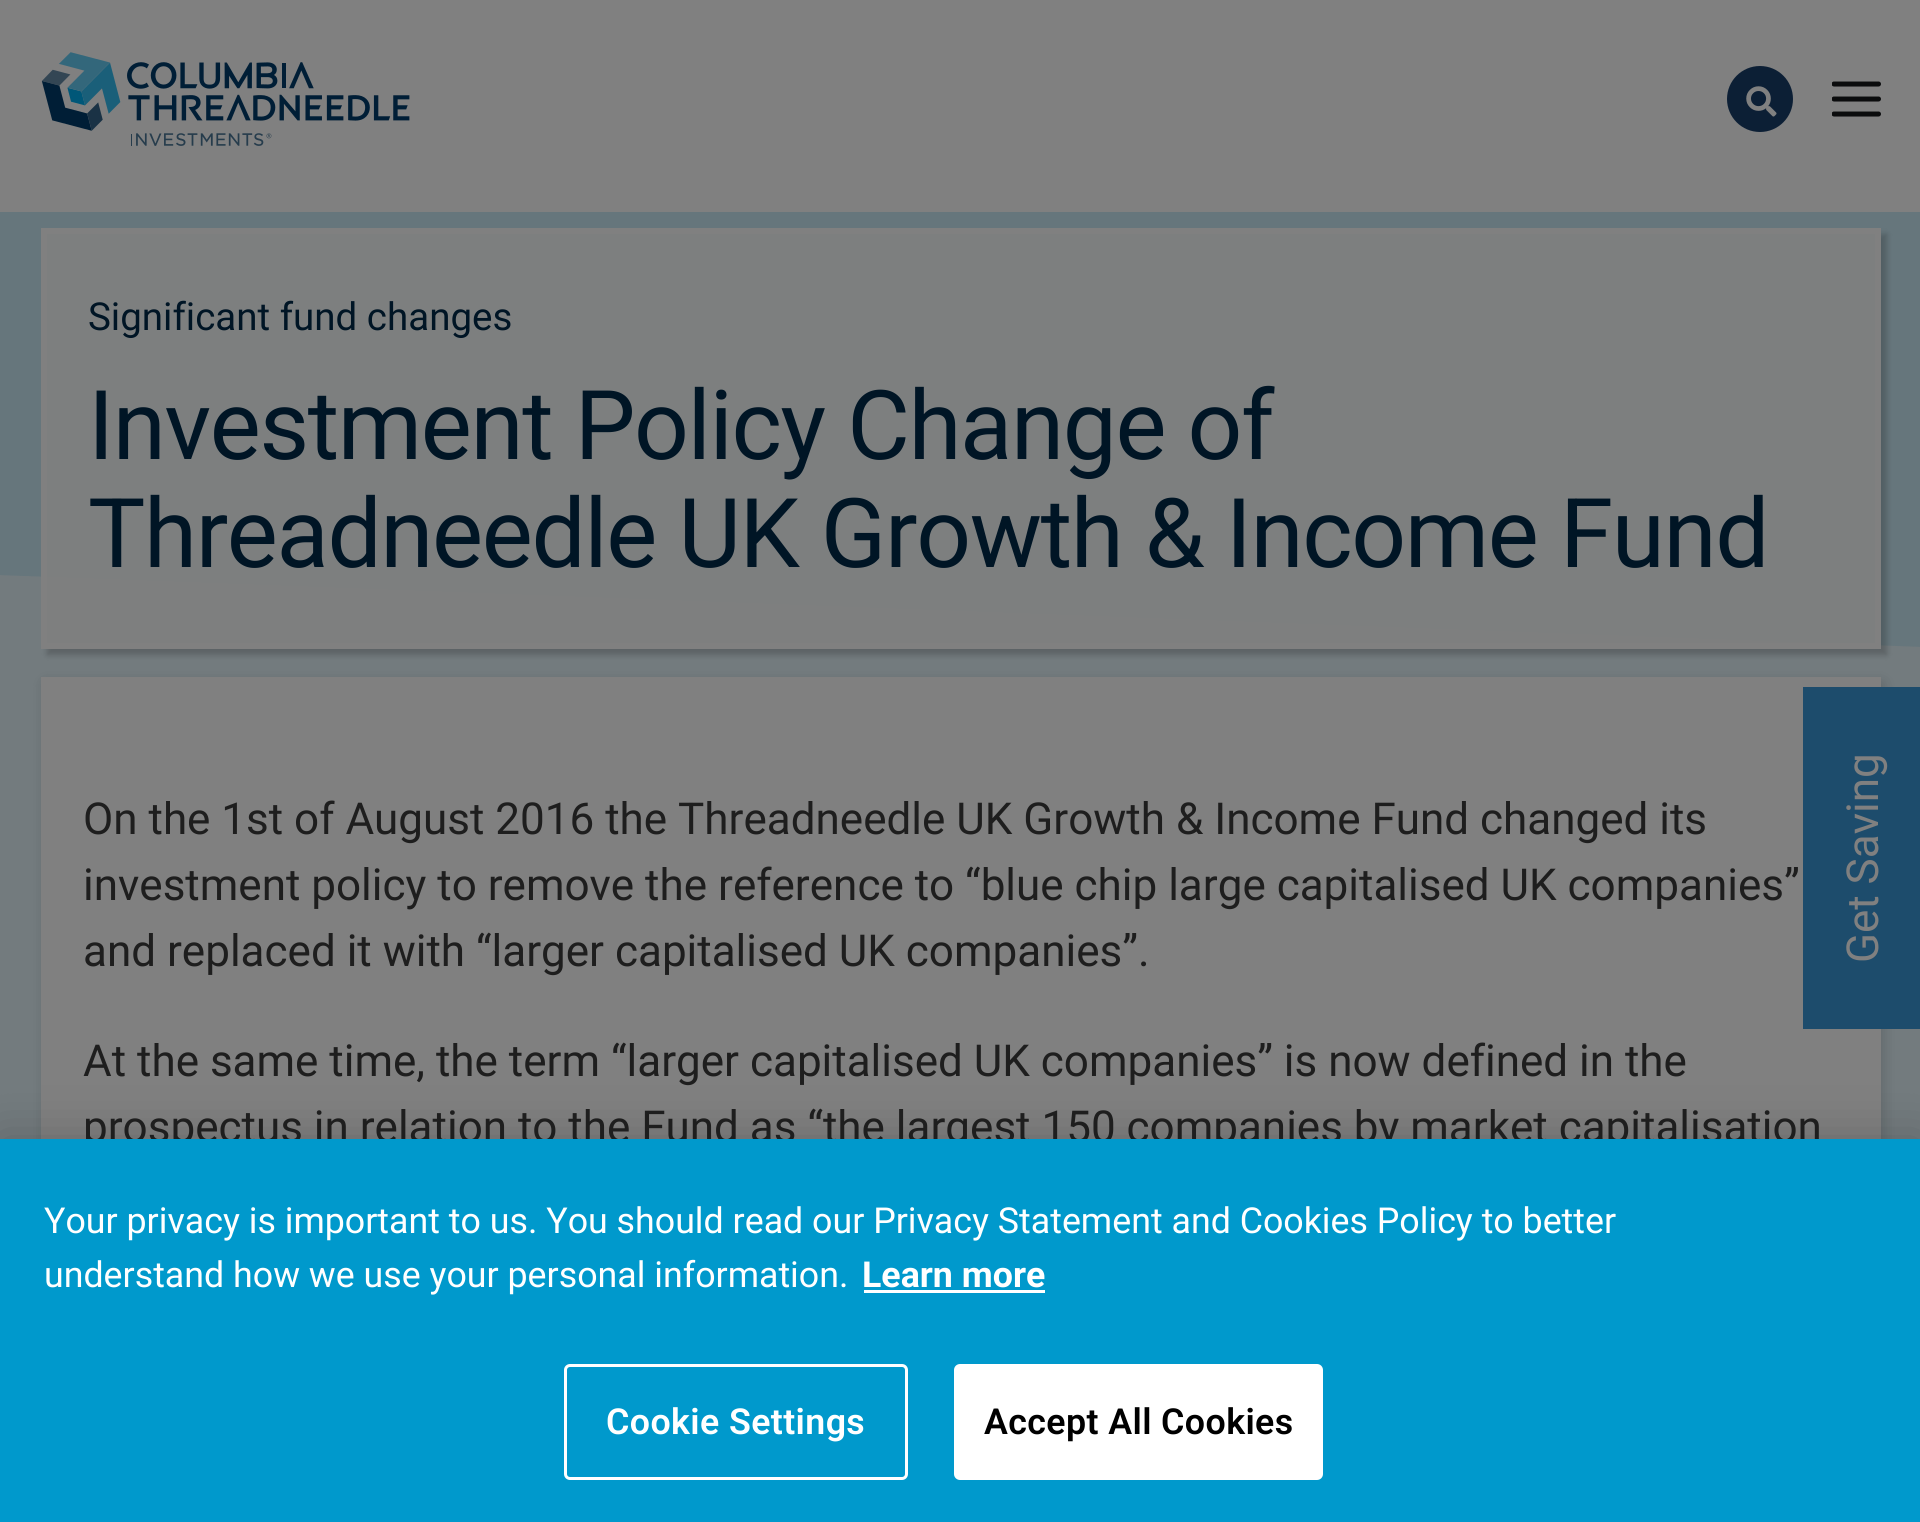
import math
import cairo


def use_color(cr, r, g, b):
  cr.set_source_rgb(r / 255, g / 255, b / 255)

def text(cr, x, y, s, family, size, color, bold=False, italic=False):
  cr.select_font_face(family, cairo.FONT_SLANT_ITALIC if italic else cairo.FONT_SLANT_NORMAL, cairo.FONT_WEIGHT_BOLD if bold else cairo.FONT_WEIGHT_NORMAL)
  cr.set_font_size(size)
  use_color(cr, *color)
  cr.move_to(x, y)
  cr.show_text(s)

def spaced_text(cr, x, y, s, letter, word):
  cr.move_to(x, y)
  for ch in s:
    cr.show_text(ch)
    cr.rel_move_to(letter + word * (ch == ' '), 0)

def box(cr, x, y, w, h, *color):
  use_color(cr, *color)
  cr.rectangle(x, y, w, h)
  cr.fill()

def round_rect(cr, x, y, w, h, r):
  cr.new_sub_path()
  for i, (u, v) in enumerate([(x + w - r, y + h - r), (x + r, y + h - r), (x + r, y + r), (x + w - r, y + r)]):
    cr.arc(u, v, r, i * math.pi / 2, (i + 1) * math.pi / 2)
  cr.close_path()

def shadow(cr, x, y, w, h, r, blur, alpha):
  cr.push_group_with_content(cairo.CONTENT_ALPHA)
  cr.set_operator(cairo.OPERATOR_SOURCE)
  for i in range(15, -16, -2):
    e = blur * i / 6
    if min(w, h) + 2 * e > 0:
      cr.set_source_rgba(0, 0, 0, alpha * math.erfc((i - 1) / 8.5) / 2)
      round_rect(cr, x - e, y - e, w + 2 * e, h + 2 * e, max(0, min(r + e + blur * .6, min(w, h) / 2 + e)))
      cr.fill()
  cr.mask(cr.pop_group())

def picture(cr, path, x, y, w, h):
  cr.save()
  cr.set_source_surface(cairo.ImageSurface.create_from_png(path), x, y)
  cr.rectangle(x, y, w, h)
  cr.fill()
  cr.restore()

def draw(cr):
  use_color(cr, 115, 123, 126)
  cr.paint()
  box(cr, 0, 0, 1920, 212, 128, 128, 128)
  picture(cr, "img_01.png", 41, 52, 369, 94)
  use_color(cr, 12, 31, 53)
  cr.arc(1760, 99, 33, 0, 2 * math.pi)
  cr.fill()
  picture(cr, "img_02.png", 1746, 86, 31, 31)
  cr.save()
  cr.rectangle(1832, 74, 49, 50)
  cr.clip()
  cr.new_path()
  cr.move_to(1834, 99)
  cr.line_to(1878.5, 99)
  cr.move_to(1834, 84)
  cr.line_to(1878.5, 84)
  cr.move_to(1834, 114)
  cr.line_to(1878.5, 114)
  use_color(cr, 11, 12, 13)
  cr.set_line_width(5)
  cr.set_line_cap(cairo.LINE_CAP_ROUND)
  cr.set_line_join(cairo.LINE_JOIN_ROUND)
  cr.stroke()
  cr.restore()
  box(cr, 0, 212, 1920, 435, 102, 118, 124)
  use_color(cr, 115, 123, 126)
  cr.new_path()
  cr.move_to(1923, 647)
  cr.line_to(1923, 652)
  cr.line_to(-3, 652)
  cr.line_to(-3, 575)
  cr.close_path()
  cr.fill()
  cr.save()
  cr.set_fill_rule(cairo.FILL_RULE_EVEN_ODD)
  cr.new_path()
  cr.move_to(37, 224)
  cr.line_to(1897, 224)
  cr.line_to(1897, 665)
  cr.line_to(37, 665)
  cr.close_path()
  cr.move_to(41, 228)
  cr.line_to(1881, 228)
  cr.line_to(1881, 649)
  cr.line_to(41, 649)
  cr.close_path()
  cr.clip()
  use_color(cr, 0, 0, 0)
  shadow(cr, 47, 234, 1840, 421, 0, 3, 0.2)
  cr.restore()
  cr.set_source_rgba(0.502, 0.502, 0.502, 0.9)
  cr.rectangle(44, 231, 1834, 415)
  cr.fill_preserve()
  use_color(cr, 128, 128, 128)
  cr.set_line_width(6)
  cr.stroke()
  use_color(cr, 0, 0, 0)
  shadow(cr, 44, 682, 1840, 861, 0, 7, 0.15)
  box(cr, 41, 677, 1840, 462, 128, 128, 128)
  box(cr, 1803, 687, 117, 342, 29, 76, 108)
  use_color(cr, 0, 0, 0)
  shadow(cr, 0, 1139, 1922, 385, 0, 25, 0.2)
  text(cr, 88, 330, "Significant fund changes", "Roboto", 38.5, (0, 21, 37))
  cr.set_font_size(96.25)
  spaced_text(cr, 88, 459, "Investment Policy Change of", -1.4, 0)
  spaced_text(cr, 88, 567, "Threadneedle UK Growth & Income Fund", -1.4, 0)
  text(cr, 83, 834, "On the 1st of August 2016 the Threadneedle UK Growth & Income Fund changed its", "Roboto", 44, (30, 30, 30))
  text(cr, 83, 900, "investment policy to remove the reference to “blue chip large capitalised UK companies”", "Roboto", 44, (30, 30, 30))
  text(cr, 83, 966, "and replaced it with “larger capitalised UK companies”.", "Roboto", 44, (30, 30, 30))
  text(cr, 83, 1076, "At the same time, the term “larger capitalised UK companies” is now defined in the", "Roboto", 44, (30, 30, 30))
  text(cr, 83, 1142, "prospectus in relation to the Fund as “the largest 150 companies by market capitalisation", "Roboto", 44, (30, 30, 30))
  cr.save()
  cr.translate(1878, 963)
  cr.rotate(-90 * math.pi / 180)
  text(cr, 0, 0, "Get Saving", "Roboto", 44, (128, 128, 128))
  cr.restore()
  box(cr, 0, 1139, 1920, 383, 0, 153, 204)
  text(cr, 44, 1233, "Your privacy is important to us. You should read our Privacy Statement and Cookies Policy to better", "Roboto", 35.75, (255, 255, 255))
  text(cr, 44, 1287, "understand how we use your personal information.", "Roboto", 35.75, (255, 255, 255))
  text(cr, 862, 1287, "Learn more", "Roboto", 35.75, (255, 255, 255), bold=True)
  box(cr, 864, 1290, 181, 3, 255, 255, 255)
  round_rect(cr, 565.5, 1365.5, 341, 113, 4.5)
  cr.set_line_width(3)
  cr.stroke()
  cr.select_font_face("Roboto SemiBold")
  spaced_text(cr, 606, 1434, "Cookie Settings", 0.4, 0)
  round_rect(cr, 955.5, 1365.5, 366, 113, 4.5)
  cr.fill_preserve()
  cr.stroke()
  use_color(cr, 0, 0, 0)
  spaced_text(cr, 984, 1434, "Accept All Cookies", 0.4, 0)


surface = cairo.ImageSurface(cairo.FORMAT_RGB24, 1920, 1522)
cr = cairo.Context(surface)
options = cairo.FontOptions()
options.set_hint_metrics(cairo.HINT_METRICS_OFF)
options.set_hint_style(cairo.HINT_STYLE_NONE)
cr.set_font_options(options)
cr.set_miter_limit(4)
draw(cr)
surface.write_to_png("out.png")
